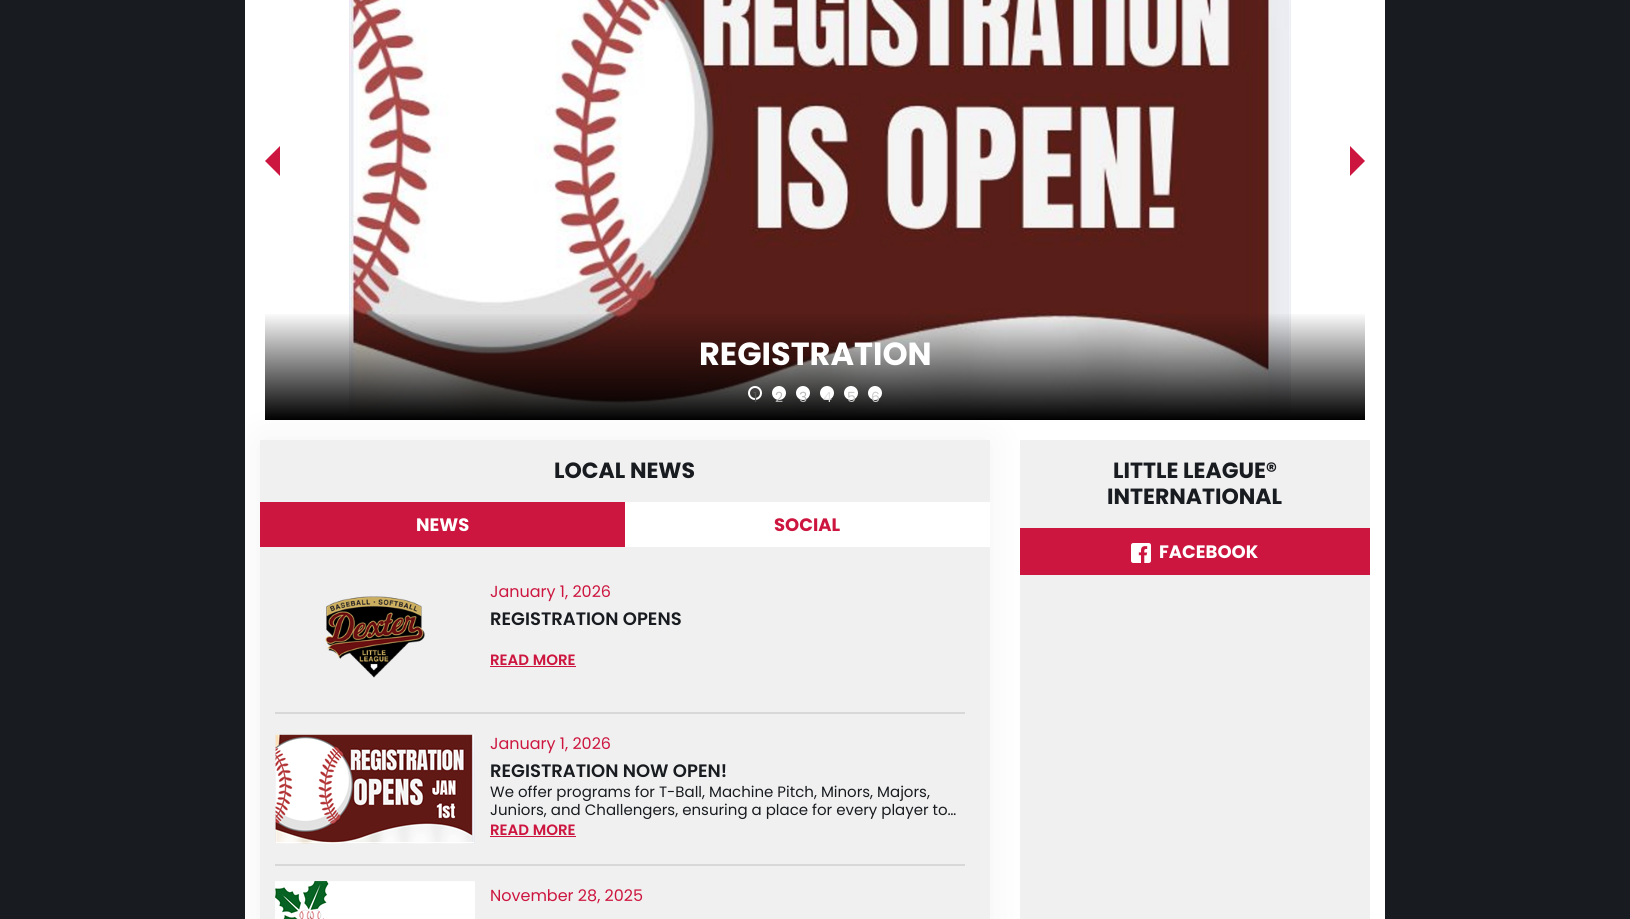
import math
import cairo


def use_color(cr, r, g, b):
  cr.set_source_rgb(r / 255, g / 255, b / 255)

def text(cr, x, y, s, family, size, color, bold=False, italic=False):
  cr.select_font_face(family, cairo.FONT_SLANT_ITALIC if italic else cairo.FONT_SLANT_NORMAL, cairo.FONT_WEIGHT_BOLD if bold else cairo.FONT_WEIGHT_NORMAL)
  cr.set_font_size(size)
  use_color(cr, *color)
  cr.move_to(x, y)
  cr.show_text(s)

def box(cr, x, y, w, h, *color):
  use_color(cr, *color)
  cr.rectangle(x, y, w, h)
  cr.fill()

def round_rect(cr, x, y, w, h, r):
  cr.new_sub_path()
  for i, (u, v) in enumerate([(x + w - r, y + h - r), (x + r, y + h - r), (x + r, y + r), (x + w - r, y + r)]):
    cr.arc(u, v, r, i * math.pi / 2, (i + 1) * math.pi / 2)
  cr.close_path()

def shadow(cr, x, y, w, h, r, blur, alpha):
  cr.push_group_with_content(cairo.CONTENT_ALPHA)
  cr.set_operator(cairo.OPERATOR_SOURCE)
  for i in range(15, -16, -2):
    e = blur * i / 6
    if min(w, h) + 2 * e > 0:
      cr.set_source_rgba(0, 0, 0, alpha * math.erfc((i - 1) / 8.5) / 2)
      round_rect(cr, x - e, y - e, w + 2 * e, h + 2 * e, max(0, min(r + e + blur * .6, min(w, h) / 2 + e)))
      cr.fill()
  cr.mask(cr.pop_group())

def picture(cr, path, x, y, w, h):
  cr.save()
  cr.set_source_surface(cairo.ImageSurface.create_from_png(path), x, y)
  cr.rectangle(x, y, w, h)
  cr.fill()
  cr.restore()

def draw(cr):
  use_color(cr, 24, 27, 31)
  cr.paint()
  box(cr, 245, 0, 1140, 919, 255, 255, 255)
  use_color(cr, 205, 22, 63)
  cr.new_path()
  cr.move_to(280, 146)
  cr.line_to(280, 176)
  cr.line_to(265, 161)
  cr.close_path()
  cr.fill()
  cr.new_path()
  cr.move_to(1350, 176)
  cr.line_to(1350, 146)
  cr.line_to(1365, 161)
  cr.close_path()
  cr.fill()
  picture(cr, "img_01.png", 349, 0, 942, 414)
  gradient = cairo.LinearGradient(815, 312, 815, 420)
  gradient.add_color_stop_rgba(0, 0, 0, 0, 0)
  gradient.add_color_stop_rgba(1, 0, 0, 0, 1)
  cr.set_source(gradient)
  cr.rectangle(265, 314, 1100, 106)
  cr.fill()
  cr.arc(755, 393, 6, 0, 2 * math.pi)
  use_color(cr, 255, 255, 255)
  cr.stroke()
  cr.arc(779, 393, 6, 0, 2 * math.pi)
  cr.fill_preserve()
  cr.stroke()
  cr.arc(803, 393, 6, 0, 2 * math.pi)
  cr.fill_preserve()
  cr.stroke()
  cr.arc(827, 393, 6, 0, 2 * math.pi)
  cr.fill_preserve()
  cr.stroke()
  cr.arc(851, 393, 6, 0, 2 * math.pi)
  cr.fill_preserve()
  cr.stroke()
  cr.arc(875, 393, 6, 0, 2 * math.pi)
  cr.fill_preserve()
  cr.stroke()
  box(cr, 1020, 440, 350, 479, 240, 240, 240)
  use_color(cr, 0, 0, 0)
  shadow(cr, 260, 440, 730, 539, 0, 20, 0.05)
  box(cr, 260, 440, 730, 479, 240, 240, 240)
  box(cr, 625, 502, 365, 45, 255, 255, 255)
  box(cr, 260, 502, 365, 45, 205, 22, 63)
  box(cr, 275, 712, 690, 2, 216, 216, 216)
  picture(cr, "img_02.png", 325, 596, 100, 82)
  box(cr, 490, 666, 86, 1, 205, 22, 63)
  box(cr, 275, 864, 690, 2, 216, 216, 216)
  picture(cr, "img_03.png", 275, 734, 200, 110)
  box(cr, 490, 836, 86, 1, 205, 22, 63)
  picture(cr, "img_04.png", 275, 881, 200, 38)
  box(cr, 1020, 528, 350, 47, 205, 22, 63)
  picture(cr, "img_05.png", 1131, 543, 20, 20)
  text(cr, 699, 365, "REGISTRATION", "Poppins", 32, (255, 255, 255), bold=True)
  text(cr, 753, 402, "1", "Poppins", 14, (87, 88, 86))
  text(cr, 775, 402, "2", "Poppins", 14, (187, 187, 187))
  text(cr, 799, 402, "3", "Poppins", 14, (187, 187, 187))
  text(cr, 823, 402, "4", "Poppins", 14, (226, 226, 226))
  text(cr, 847, 402, "5", "Poppins", 14, (197, 197, 197))
  text(cr, 871, 402, "6", "Poppins", 14, (204, 204, 204))
  text(cr, 554, 478, "LOCAL NEWS", "Poppins", 22, (24, 27, 31), bold=True)
  text(cr, 416, 531, "NEWS", "Poppins", 18, (255, 255, 255), bold=True)
  text(cr, 774, 531, "SOCIAL", "Poppins", 18, (205, 22, 63), bold=True)
  text(cr, 490, 597, "January 1, 2026", "Poppins", 16, (205, 22, 63))
  text(cr, 490, 625, "REGISTRATION OPENS", "Poppins SemiBold", 18, (24, 27, 31))
  text(cr, 490, 665, "READ MORE", "Poppins SemiBold", 15, (205, 22, 63))
  text(cr, 490, 749, "January 1, 2026", "Poppins", 16, (205, 22, 63))
  text(cr, 490, 777, "REGISTRATION NOW OPEN!", "Poppins SemiBold", 18, (24, 27, 31))
  text(cr, 490, 797, "We offer programs for T-Ball, Machine Pitch, Minors, Majors,", "Poppins", 15, (24, 27, 31))
  text(cr, 490, 815, "Juniors, and Challengers, ensuring a place for every player to…", "Poppins", 15, (24, 27, 31))
  text(cr, 490, 835, "READ MORE", "Poppins SemiBold", 15, (205, 22, 63))
  text(cr, 490, 901, "November 28, 2025", "Poppins", 16, (205, 22, 63))
  text(cr, 1113, 478, "LITTLE LEAGUE®", "Poppins", 22, (24, 27, 31), bold=True)
  text(cr, 1107, 504, "INTERNATIONAL", "Poppins", 22, (24, 27, 31), bold=True)
  text(cr, 1159, 558, "FACEBOOK", "Poppins", 18, (255, 255, 255), bold=True)


surface = cairo.ImageSurface(cairo.FORMAT_RGB24, 1630, 919)
cr = cairo.Context(surface)
options = cairo.FontOptions()
options.set_hint_metrics(cairo.HINT_METRICS_OFF)
options.set_hint_style(cairo.HINT_STYLE_NONE)
cr.set_font_options(options)
cr.set_miter_limit(4)
draw(cr)
surface.write_to_png("out.png")
